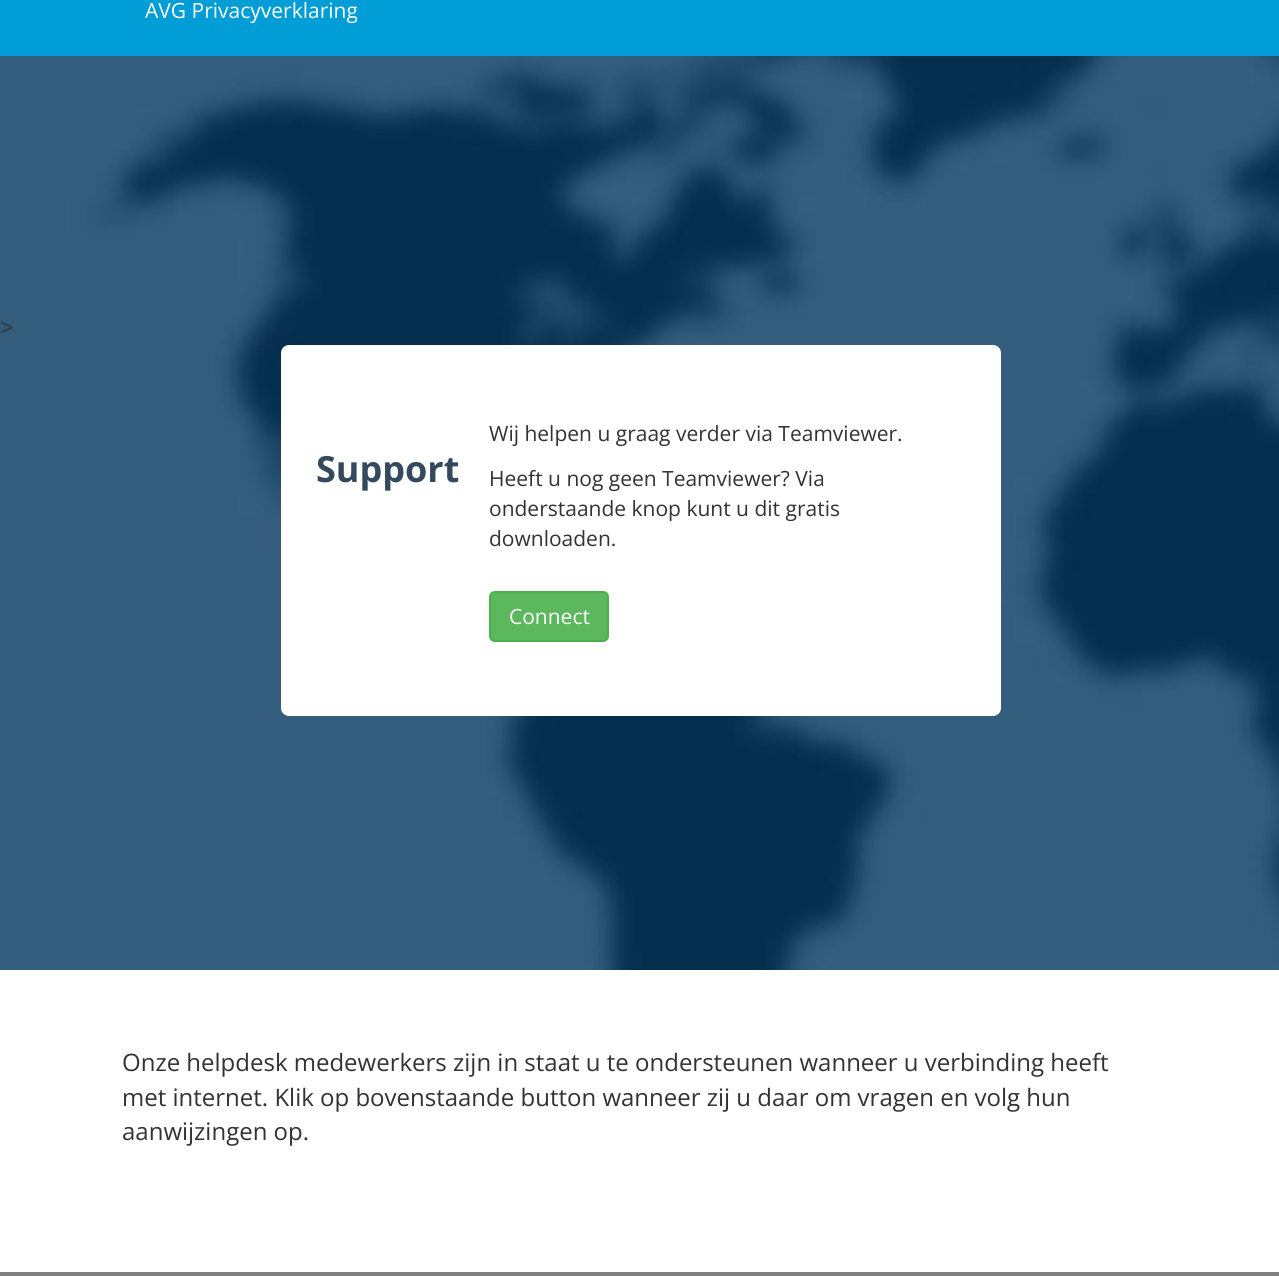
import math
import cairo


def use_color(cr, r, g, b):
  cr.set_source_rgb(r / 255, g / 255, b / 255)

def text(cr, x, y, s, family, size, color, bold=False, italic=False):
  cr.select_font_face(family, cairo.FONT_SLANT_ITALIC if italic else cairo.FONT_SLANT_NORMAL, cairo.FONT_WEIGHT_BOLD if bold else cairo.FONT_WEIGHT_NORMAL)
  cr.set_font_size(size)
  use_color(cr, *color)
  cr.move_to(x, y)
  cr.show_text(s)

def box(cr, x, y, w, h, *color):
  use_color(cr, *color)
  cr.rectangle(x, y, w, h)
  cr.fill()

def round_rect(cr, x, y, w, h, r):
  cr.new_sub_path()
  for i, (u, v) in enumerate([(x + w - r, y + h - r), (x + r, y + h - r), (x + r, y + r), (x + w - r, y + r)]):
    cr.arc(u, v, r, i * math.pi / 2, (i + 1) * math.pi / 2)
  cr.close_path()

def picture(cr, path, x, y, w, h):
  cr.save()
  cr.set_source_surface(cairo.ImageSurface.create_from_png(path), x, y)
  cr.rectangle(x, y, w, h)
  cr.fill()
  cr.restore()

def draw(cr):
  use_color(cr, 255, 255, 255)
  cr.paint()
  box(cr, 0, 0, 1279, 56, 0, 157, 215)
  picture(cr, "img_01.png", 0, 56, 1279, 914)
  use_color(cr, 255, 255, 255)
  round_rect(cr, 282, 346, 718, 369, 7)
  cr.fill_preserve()
  cr.stroke()
  use_color(cr, 92, 184, 92)
  round_rect(cr, 490, 592, 118, 49, 5)
  cr.fill_preserve()
  use_color(cr, 76, 174, 76)
  cr.stroke()
  box(cr, 0, 1272, 1279, 4, 128, 128, 128)
  text(cr, 145, 18, "AVG Privacyverklaring", "Open Sans", 21, (255, 255, 255))
  text(cr, 0, 336, ">", "Open Sans", 24, (51, 51, 51))
  text(cr, 316, 482, "Support", "Open Sans", 36, (52, 73, 94), bold=True)
  text(cr, 489, 441, "Wij helpen u graag verder via Teamviewer.", "Open Sans", 21, (51, 51, 51))
  text(cr, 489, 486, "Heeft u nog geen Teamviewer? Via", "Open Sans", 21, (51, 51, 51))
  text(cr, 489, 516, "onderstaande knop kunt u dit gratis", "Open Sans", 21, (51, 51, 51))
  text(cr, 489, 546, "downloaden.", "Open Sans", 21, (51, 51, 51))
  text(cr, 509, 624, "Connect", "Open Sans", 21, (255, 255, 255))
  text(cr, 122, 1071, "Onze helpdesk medewerkers zijn in staat u te ondersteunen wanneer u verbinding heeft", "Open Sans", 24, (51, 51, 51))
  text(cr, 122, 1106, "met internet. Klik op bovenstaande button wanneer zij u daar om vragen en volg hun", "Open Sans", 24, (51, 51, 51))
  text(cr, 122, 1140, "aanwijzingen op.", "Open Sans", 24, (51, 51, 51))


surface = cairo.ImageSurface(cairo.FORMAT_RGB24, 1279, 1276)
cr = cairo.Context(surface)
options = cairo.FontOptions()
options.set_hint_metrics(cairo.HINT_METRICS_OFF)
options.set_hint_style(cairo.HINT_STYLE_NONE)
cr.set_font_options(options)
cr.set_miter_limit(4)
draw(cr)
surface.write_to_png("out.png")
